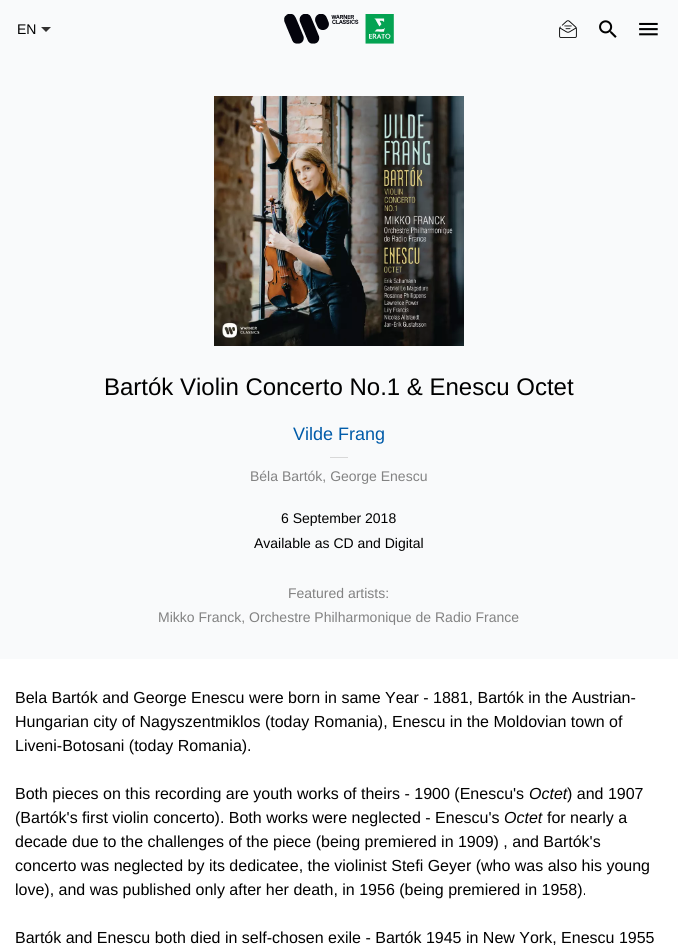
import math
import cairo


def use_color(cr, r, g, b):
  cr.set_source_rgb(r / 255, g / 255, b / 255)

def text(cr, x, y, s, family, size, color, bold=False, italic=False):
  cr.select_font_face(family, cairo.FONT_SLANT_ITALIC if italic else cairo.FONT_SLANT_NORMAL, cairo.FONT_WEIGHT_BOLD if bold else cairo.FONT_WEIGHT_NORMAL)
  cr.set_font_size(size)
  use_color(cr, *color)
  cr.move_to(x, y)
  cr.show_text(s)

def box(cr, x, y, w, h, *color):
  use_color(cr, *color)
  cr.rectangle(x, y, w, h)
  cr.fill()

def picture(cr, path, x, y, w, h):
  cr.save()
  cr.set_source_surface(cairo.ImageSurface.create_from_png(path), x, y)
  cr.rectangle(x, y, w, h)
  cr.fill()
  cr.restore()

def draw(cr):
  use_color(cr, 255, 255, 255)
  cr.paint()
  box(cr, 0, 0, 678, 659, 249, 250, 251)
  use_color(cr, 50, 49, 48)
  cr.new_path()
  cr.move_to(41, 27)
  cr.line_to(51, 27)
  cr.line_to(46, 32)
  cr.close_path()
  cr.fill()
  picture(cr, "img_01.png", 284, 14, 110, 30)
  picture(cr, "img_02.png", 559, 20, 18, 18)
  picture(cr, "img_03.png", 599, 20, 18, 18)
  picture(cr, "img_04.png", 639, 22, 19, 14)
  picture(cr, "img_05.png", 214, 96, 250, 250)
  box(cr, 330, 457, 18, 1, 216, 216, 216)
  text(cr, 17, 34, "EN", "Liberation Sans", 14, (0, 0, 0))
  text(cr, 104, 395, "Bartók Violin Concerto No.1 & Enescu Octet", "Liberation Sans", 24, (0, 0, 0))
  text(cr, 293, 440, "Vilde Frang", "Liberation Sans", 18, (0, 91, 169))
  text(cr, 250, 481, "Béla Bartók, George Enescu", "Liberation Sans", 14, (130, 130, 130))
  text(cr, 281, 523, "6 September 2018", "Liberation Sans", 14, (0, 0, 0))
  text(cr, 254, 548, "Available as CD and Digital", "Liberation Sans", 14, (0, 0, 0))
  text(cr, 288, 598, "Featured artists:", "Liberation Sans", 14, (130, 130, 130))
  text(cr, 158, 622, "Mikko Franck, Orchestre Philharmonique de Radio France", "Liberation Sans", 14, (130, 130, 130))
  text(cr, 15, 703, "Bela Bartók and George Enescu were born in same Year - 1881, Bartók in the Austrian-", "Liberation Sans", 16, (0, 0, 0))
  text(cr, 15, 727, "Hungarian city of Nagyszentmiklos (today Romania), Enescu in the Moldovian town of", "Liberation Sans", 16, (0, 0, 0))
  text(cr, 15, 751, "Liveni-Botosani (today Romania).", "Liberation Sans", 16, (0, 0, 0))
  text(cr, 15, 799, "Both pieces on this recording are youth works of theirs - 1900 (Enescu's", "Liberation Sans", 16, (0, 0, 0))
  text(cr, 529, 799, "Octet", "Liberation Sans", 16, (0, 0, 0), italic=True)
  text(cr, 567, 799, ") and 1907", "Liberation Sans", 16, (0, 0, 0))
  text(cr, 15, 823, "(Bartók's first violin concerto). Both works were neglected - Enescu's", "Liberation Sans", 16, (0, 0, 0))
  text(cr, 504, 823, "Octet", "Liberation Sans", 16, (0, 0, 0), italic=True)
  text(cr, 547, 823, "for nearly a", "Liberation Sans", 16, (0, 0, 0))
  text(cr, 15, 847, "decade due to the challenges of the piece (being premiered in 1909) , and Bartók's", "Liberation Sans", 16, (0, 0, 0))
  text(cr, 15, 871, "concerto was neglected by its dedicatee, the violinist Stefi Geyer (who was also his young", "Liberation Sans", 16, (0, 0, 0))
  text(cr, 15, 895, "love), and was published only after her death, in 1956 (being premiered in 1958).", "Liberation Sans", 16, (0, 0, 0))
  text(cr, 15, 943, "Bartók and Enescu both died in self-chosen exile - Bartók 1945 in New York, Enescu 1955", "Liberation Sans", 16, (0, 0, 0))


surface = cairo.ImageSurface(cairo.FORMAT_RGB24, 678, 945)
cr = cairo.Context(surface)
options = cairo.FontOptions()
options.set_hint_metrics(cairo.HINT_METRICS_OFF)
options.set_hint_style(cairo.HINT_STYLE_NONE)
cr.set_font_options(options)
cr.set_miter_limit(4)
draw(cr)
surface.write_to_png("out.png")
